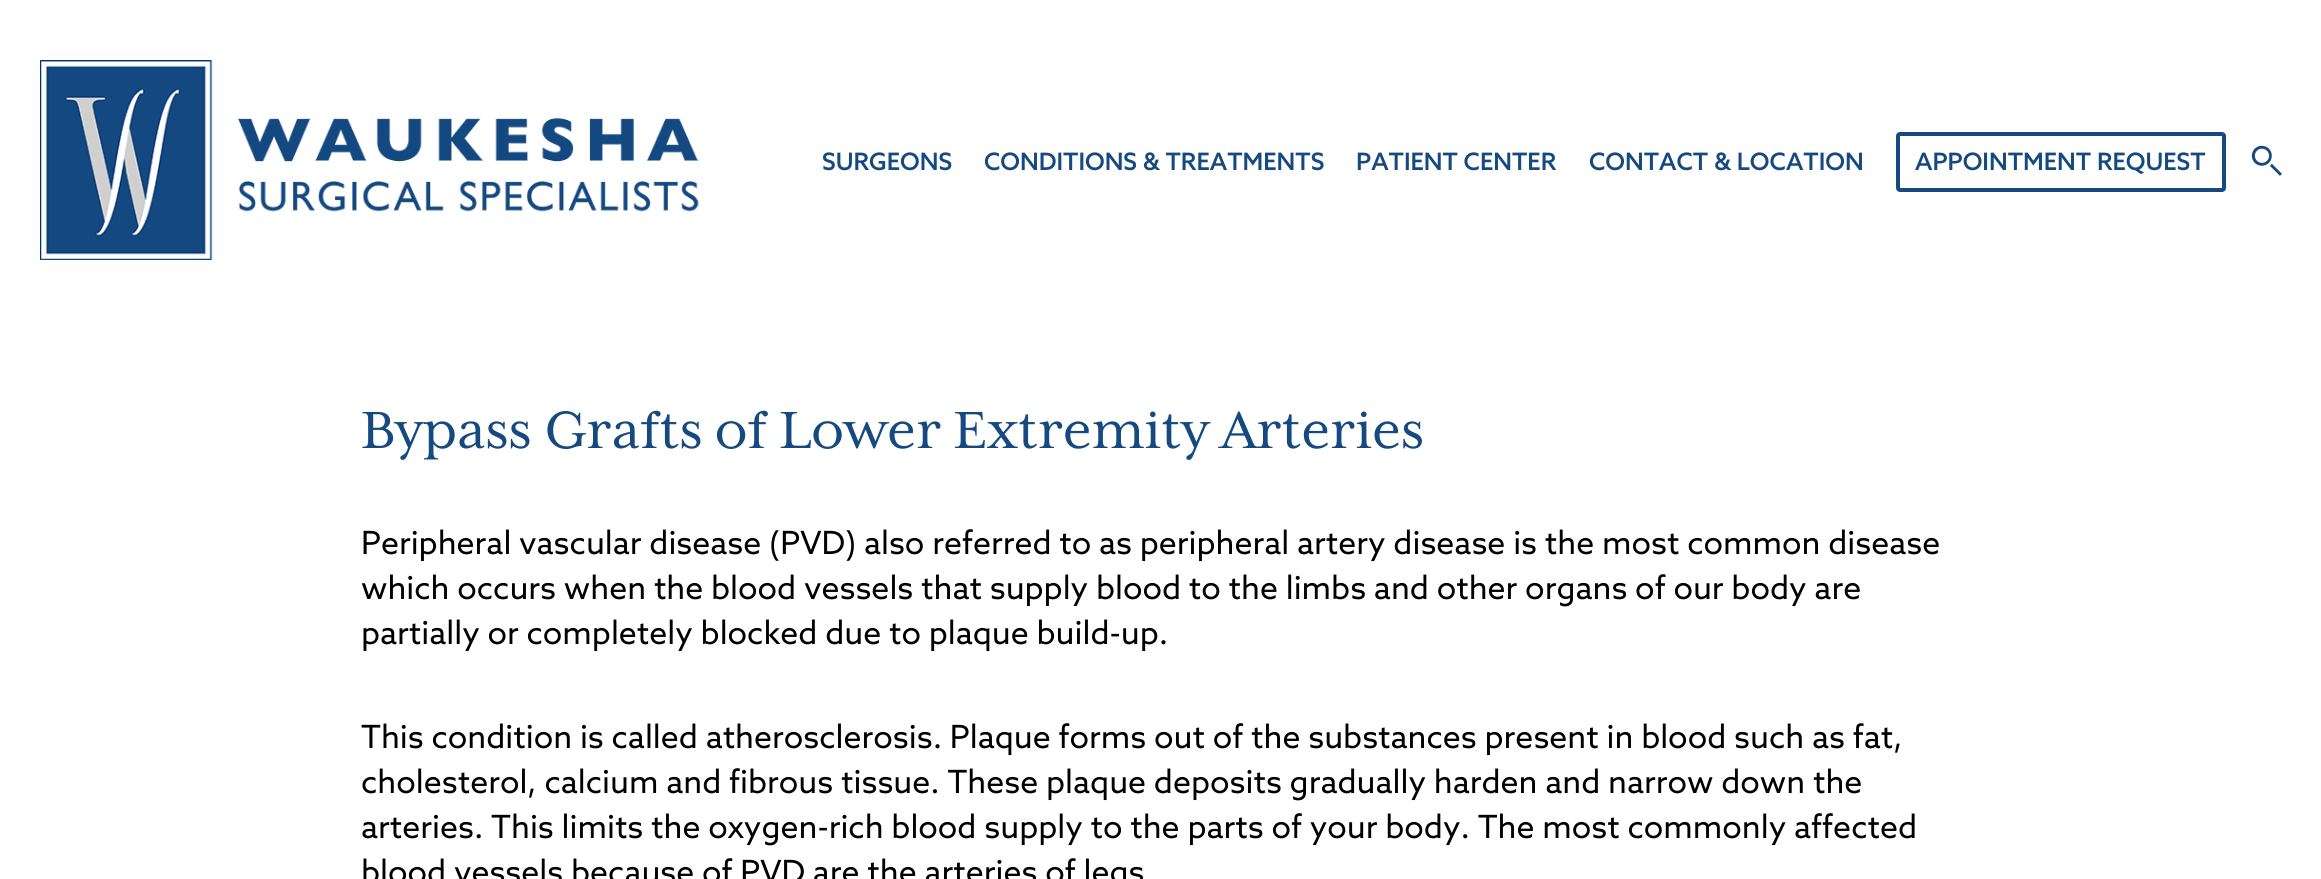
import math
import cairo


def use_color(cr, r, g, b):
  cr.set_source_rgb(r / 255, g / 255, b / 255)

def text(cr, x, y, s, family, size, color, bold=False, italic=False):
  cr.select_font_face(family, cairo.FONT_SLANT_ITALIC if italic else cairo.FONT_SLANT_NORMAL, cairo.FONT_WEIGHT_BOLD if bold else cairo.FONT_WEIGHT_NORMAL)
  cr.set_font_size(size)
  use_color(cr, *color)
  cr.move_to(x, y)
  cr.show_text(s)

def round_rect(cr, x, y, w, h, r):
  cr.new_sub_path()
  for i, (u, v) in enumerate([(x + w - r, y + h - r), (x + r, y + h - r), (x + r, y + r), (x + w - r, y + r)]):
    cr.arc(u, v, r, i * math.pi / 2, (i + 1) * math.pi / 2)
  cr.close_path()

def picture(cr, path, x, y, w, h):
  cr.save()
  cr.set_source_surface(cairo.ImageSurface.create_from_png(path), x, y)
  cr.rectangle(x, y, w, h)
  cr.fill()
  cr.restore()

def draw(cr):
  use_color(cr, 255, 255, 255)
  cr.paint()
  picture(cr, "img_01.png", 40, 60, 659, 200)
  round_rect(cr, 1898, 134, 326, 56, 2)
  use_color(cr, 21, 73, 128)
  cr.set_line_width(4)
  cr.stroke()
  picture(cr, "img_02.png", 2251, 145, 31, 31)
  text(cr, 822, 170, "SURGEONS", "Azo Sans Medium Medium", 24, (21, 73, 128))
  text(cr, 984, 170, "CONDITIONS & TREATMENTS", "Azo Sans Medium Medium", 24, (21, 73, 128))
  text(cr, 1356, 170, "PATIENT CENTER", "Azo Sans Medium Medium", 24, (21, 73, 128))
  text(cr, 1589, 170, "CONTACT & LOCATION", "Azo Sans Medium Medium", 24, (21, 73, 128))
  text(cr, 1915, 170, "APPOINTMENT REQUEST", "Azo Sans Medium Medium", 24, (21, 73, 128))
  text(cr, 361, 448, "Bypass Grafts of Lower Extremity Arteries", "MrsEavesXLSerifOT", 60, (21, 73, 128))
  text(cr, 361, 554, "Peripheral vascular disease (PVD) also referred to as peripheral artery disease is the most common disease", "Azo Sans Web", 32, (0, 0, 0))
  text(cr, 361, 599, "which occurs when the blood vessels that supply blood to the limbs and other organs of our body are", "Azo Sans Web", 32, (0, 0, 0))
  text(cr, 361, 644, "partially or completely blocked due to plaque build-up.", "Azo Sans Web", 32, (0, 0, 0))
  text(cr, 361, 748, "This condition is called atherosclerosis. Plaque forms out of the substances present in blood such as fat,", "Azo Sans Web", 32, (0, 0, 0))
  text(cr, 361, 793, "cholesterol, calcium and fibrous tissue. These plaque deposits gradually harden and narrow down the", "Azo Sans Web", 32, (0, 0, 0))
  text(cr, 361, 838, "arteries. This limits the oxygen-rich blood supply to the parts of your body. The most commonly affected", "Azo Sans Web", 32, (0, 0, 0))
  text(cr, 361, 883, "blood vessels because of PVD are the arteries of legs", "Azo Sans Web", 32, (0, 0, 0))


surface = cairo.ImageSurface(cairo.FORMAT_RGB24, 2321, 879)
cr = cairo.Context(surface)
options = cairo.FontOptions()
options.set_hint_metrics(cairo.HINT_METRICS_OFF)
options.set_hint_style(cairo.HINT_STYLE_NONE)
cr.set_font_options(options)
cr.set_miter_limit(4)
draw(cr)
surface.write_to_png("out.png")
